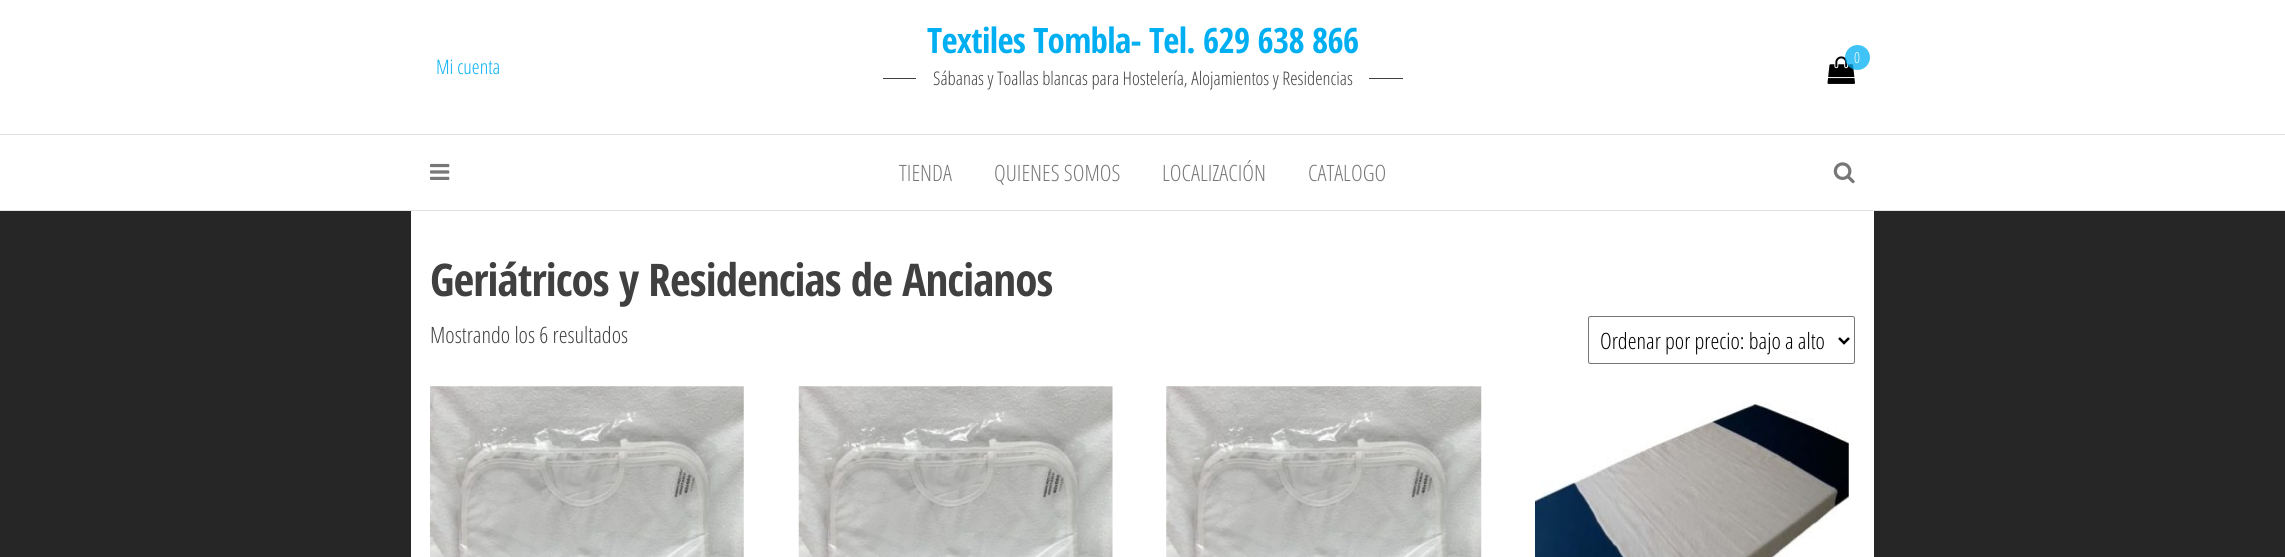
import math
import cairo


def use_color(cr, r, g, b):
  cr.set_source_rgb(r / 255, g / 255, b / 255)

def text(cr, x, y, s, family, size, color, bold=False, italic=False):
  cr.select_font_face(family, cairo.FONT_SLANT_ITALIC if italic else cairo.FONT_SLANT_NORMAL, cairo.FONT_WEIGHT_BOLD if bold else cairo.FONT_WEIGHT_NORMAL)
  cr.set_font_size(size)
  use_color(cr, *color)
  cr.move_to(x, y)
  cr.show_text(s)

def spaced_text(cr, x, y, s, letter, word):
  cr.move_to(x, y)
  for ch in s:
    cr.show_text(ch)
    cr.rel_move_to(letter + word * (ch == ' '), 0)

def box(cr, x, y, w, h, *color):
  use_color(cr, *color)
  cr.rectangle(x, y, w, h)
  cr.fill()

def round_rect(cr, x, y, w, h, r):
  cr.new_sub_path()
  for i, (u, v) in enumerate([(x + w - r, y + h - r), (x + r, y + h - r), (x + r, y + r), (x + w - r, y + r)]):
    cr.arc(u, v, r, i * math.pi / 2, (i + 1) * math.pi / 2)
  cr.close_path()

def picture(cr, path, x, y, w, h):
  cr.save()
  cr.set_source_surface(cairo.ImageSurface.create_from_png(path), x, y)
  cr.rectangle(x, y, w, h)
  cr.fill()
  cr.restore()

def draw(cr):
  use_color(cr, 38, 38, 38)
  cr.paint()
  box(cr, 0, 0, 2285, 134, 255, 255, 255)
  box(cr, 883, 78, 33, 1, 64, 64, 64)
  box(cr, 1369, 78, 34, 1, 64, 64, 64)
  picture(cr, "img_01.png", 1827, 56, 28, 28)
  cr.set_source_rgba(0, 0.686, 0.949, 0.75)
  cr.arc(1857.5, 57.5, 12.5, 0, 2 * math.pi)
  cr.fill()
  box(cr, 0, 135, 2285, 75, 255, 255, 255)
  box(cr, 0, 134, 2285, 1, 226, 226, 226)
  box(cr, 0, 210, 2285, 1, 226, 226, 226)
  picture(cr, "img_02.png", 430, 163, 20, 17)
  picture(cr, "img_03.png", 1833, 162, 22, 22)
  box(cr, 411, 211, 1463, 346, 255, 255, 255)
  round_rect(cr, 1588.5, 316.5, 266, 47, 2)
  use_color(cr, 118, 118, 118)
  cr.set_line_width(1)
  cr.stroke()
  cr.new_path()
  cr.move_to(1839, 338)
  cr.line_to(1844, 343)
  cr.line_to(1849, 338)
  use_color(cr, 0, 0, 0)
  cr.set_line_width(2.5)
  cr.stroke()
  picture(cr, "img_04.png", 430, 386, 314, 171)
  picture(cr, "img_05.png", 798, 386, 315, 171)
  picture(cr, "img_06.png", 1166, 386, 316, 171)
  picture(cr, "img_07.png", 1535, 402, 314, 155)
  text(cr, 436, 74, "Mi cuenta", "Open Sans Condensed Light", 20, (0, 175, 242))
  cr.select_font_face("Open Sans Condensed", cairo.FONT_SLANT_NORMAL, cairo.FONT_WEIGHT_BOLD)
  cr.set_font_size(35)
  spaced_text(cr, 927, 53, "Textiles Tombla- Tel. 629 638 866", -0.7, 0)
  text(cr, 933, 85, "Sábanas y Toallas blancas para Hostelería, Alojamientos y Residencias", "Open Sans Condensed Light", 18.75, (64, 64, 64))
  text(cr, 1854, 63, "0", "Open Sans Condensed Light", 15, (255, 255, 255))
  text(cr, 899, 181, "TIENDA", "Open Sans Condensed Light", 22.5, (119, 119, 119))
  text(cr, 994, 181, "QUIENES SOMOS", "Open Sans Condensed Light", 22.5, (119, 119, 119))
  text(cr, 1162, 181, "LOCALIZACIÓN", "Open Sans Condensed Light", 22.5, (119, 119, 119))
  text(cr, 1308, 181, "CATALOGO", "Open Sans Condensed Light", 22.5, (119, 119, 119))
  cr.select_font_face("Open Sans Condensed", cairo.FONT_SLANT_NORMAL, cairo.FONT_WEIGHT_BOLD)
  cr.set_font_size(45)
  use_color(cr, 64, 64, 64)
  spaced_text(cr, 430, 296, "Geriátricos y Residencias de Ancianos", -0.9, 0)
  text(cr, 430, 343, "Mostrando los 6 resultados", "Open Sans Condensed Light", 22.5, (64, 64, 64))
  text(cr, 1600, 349, "Ordenar por precio: bajo a alto", "Open Sans Condensed Light", 22.5, (0, 0, 0))


surface = cairo.ImageSurface(cairo.FORMAT_RGB24, 2285, 557)
cr = cairo.Context(surface)
options = cairo.FontOptions()
options.set_hint_metrics(cairo.HINT_METRICS_OFF)
options.set_hint_style(cairo.HINT_STYLE_NONE)
cr.set_font_options(options)
cr.set_miter_limit(4)
draw(cr)
surface.write_to_png("out.png")
